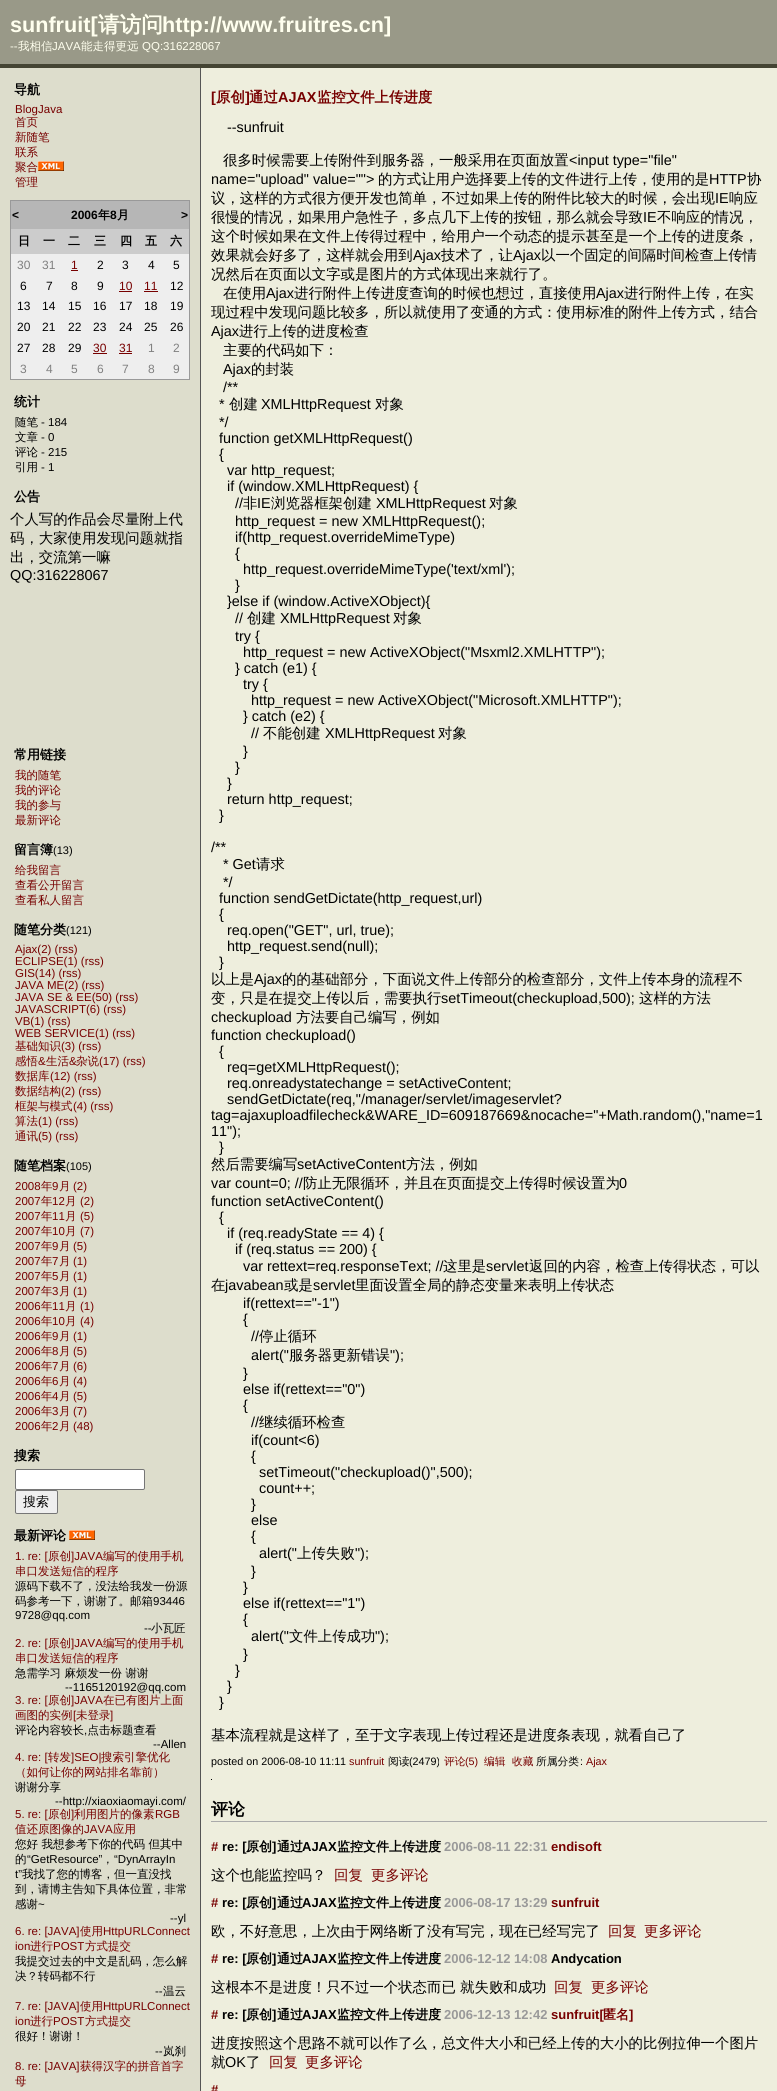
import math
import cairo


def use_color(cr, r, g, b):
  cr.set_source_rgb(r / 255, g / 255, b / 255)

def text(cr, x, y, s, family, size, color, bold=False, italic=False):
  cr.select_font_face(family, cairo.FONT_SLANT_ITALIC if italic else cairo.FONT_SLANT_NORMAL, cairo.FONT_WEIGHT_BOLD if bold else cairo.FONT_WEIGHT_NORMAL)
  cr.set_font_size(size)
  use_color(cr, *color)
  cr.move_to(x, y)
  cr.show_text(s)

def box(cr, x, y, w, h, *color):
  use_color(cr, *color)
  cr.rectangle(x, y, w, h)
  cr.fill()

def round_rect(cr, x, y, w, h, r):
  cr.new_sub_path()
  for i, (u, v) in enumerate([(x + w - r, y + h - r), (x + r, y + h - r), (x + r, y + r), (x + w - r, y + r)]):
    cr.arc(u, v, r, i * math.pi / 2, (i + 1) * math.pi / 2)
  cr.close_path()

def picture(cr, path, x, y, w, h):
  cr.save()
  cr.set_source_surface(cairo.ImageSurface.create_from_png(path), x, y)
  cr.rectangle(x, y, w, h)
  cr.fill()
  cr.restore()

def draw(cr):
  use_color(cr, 221, 221, 204)
  cr.paint()
  box(cr, 0, 0, 777, 64, 153, 153, 136)
  box(cr, 0, 64, 777, 4, 68, 68, 51)
  picture(cr, "img_01.png", 38, 161, 26, 10)
  box(cr, 11, 254, 178, 125, 238, 238, 238)
  box(cr, 10, 200, 180, 1, 153, 153, 153)
  box(cr, 189, 200, 1, 180, 153, 153, 153)
  box(cr, 10, 379, 180, 1, 153, 153, 153)
  box(cr, 10, 200, 1, 180, 153, 153, 153)
  box(cr, 11, 201, 178, 28, 182, 182, 182)
  box(cr, 11, 229, 178, 25, 204, 204, 204)
  box(cr, 71, 270, 7, 1, 119, 0, 0)
  box(cr, 119, 291, 13, 1, 119, 0, 0)
  box(cr, 144, 291, 14, 1, 119, 0, 0)
  box(cr, 93, 353, 14, 1, 119, 0, 0)
  box(cr, 119, 353, 13, 1, 119, 0, 0)
  use_color(cr, 255, 255, 255)
  round_rect(cr, 15.5, 1469.5, 129, 20, 1.5)
  cr.fill_preserve()
  use_color(cr, 118, 118, 118)
  cr.set_line_width(1)
  cr.stroke()
  use_color(cr, 239, 239, 239)
  round_rect(cr, 15.5, 1490.5, 42, 23, 1.5)
  cr.fill_preserve()
  use_color(cr, 118, 118, 118)
  cr.stroke()
  picture(cr, "img_01.png", 69, 1530, 26, 10)
  box(cr, 201, 68, 576, 2023, 238, 238, 221)
  use_color(cr, 85, 85, 85)
  cr.new_path()
  cr.move_to(200, 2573)
  cr.line_to(200, 68)
  cr.line_to(201, 68)
  cr.line_to(201, 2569)
  cr.close_path()
  cr.fill()
  box(cr, 211, 1779, 1, 1, 0, 0, 0)
  box(cr, 211, 1821, 556, 1, 170, 170, 170)
  text(cr, 10, 32, "sunfruit[", "Liberation Sans", 21.6, (255, 255, 238), bold=True)
  text(cr, 98, 32, "请访问", "WenQuanYi Zen Hei", 21.6, (255, 255, 238), bold=True)
  text(cr, 162, 32, "http://www.fruitres.cn]", "Liberation Sans", 21.6, (255, 255, 238), bold=True)
  text(cr, 10, 50, "--", "Liberation Sans", 11.5, (255, 255, 238))
  text(cr, 18, 50, "我相信", "WenQuanYi Zen Hei Medium", 11.5, (255, 255, 238))
  text(cr, 52, 50, "JAVA", "Liberation Sans", 11.5, (255, 255, 238))
  text(cr, 81, 50, "能走得更远", "WenQuanYi Zen Hei Medium", 11.5, (255, 255, 238))
  text(cr, 142, 50, "QQ:316228067", "Liberation Sans", 11.5, (255, 255, 238))
  text(cr, 14, 94, "导航", "WenQuanYi Zen Hei", 13, (0, 0, 0), bold=True)
  text(cr, 15, 113, "BlogJava", "Liberation Sans", 11.5, (119, 0, 0))
  text(cr, 15, 126, "首页", "WenQuanYi Zen Hei Medium", 11.5, (119, 0, 0))
  text(cr, 15, 141, "新随笔", "WenQuanYi Zen Hei Medium", 11.5, (119, 0, 0))
  text(cr, 15, 156, "联系", "WenQuanYi Zen Hei Medium", 11.5, (119, 0, 0))
  text(cr, 15, 171, "聚合", "WenQuanYi Zen Hei Medium", 11.5, (119, 0, 0))
  text(cr, 15, 186, "管理", "WenQuanYi Zen Hei Medium", 11.5, (119, 0, 0))
  text(cr, 12, 219, "<", "Liberation Sans", 12, (0, 0, 0), bold=True)
  text(cr, 71, 219, "2006", "Liberation Sans", 12, (0, 0, 0), bold=True)
  text(cr, 98, 219, "年", "WenQuanYi Zen Hei", 12, (0, 0, 0), bold=True)
  text(cr, 110, 219, "8", "Liberation Sans", 12, (0, 0, 0), bold=True)
  text(cr, 117, 219, "月", "WenQuanYi Zen Hei", 12, (0, 0, 0), bold=True)
  text(cr, 181, 219, ">", "Liberation Sans", 12, (0, 0, 0), bold=True)
  text(cr, 18, 245, "日", "WenQuanYi Zen Hei", 12, (0, 0, 0), bold=True)
  text(cr, 43, 245, "一", "WenQuanYi Zen Hei", 12, (0, 0, 0), bold=True)
  text(cr, 68, 245, "二", "WenQuanYi Zen Hei", 12, (0, 0, 0), bold=True)
  text(cr, 94, 245, "三", "WenQuanYi Zen Hei", 12, (0, 0, 0), bold=True)
  text(cr, 120, 245, "四", "WenQuanYi Zen Hei", 12, (0, 0, 0), bold=True)
  text(cr, 145, 245, "五", "WenQuanYi Zen Hei", 12, (0, 0, 0), bold=True)
  text(cr, 170, 245, "六", "WenQuanYi Zen Hei", 12, (0, 0, 0), bold=True)
  text(cr, 17, 269, "30", "Liberation Sans", 12, (128, 128, 128))
  text(cr, 42, 269, "31", "Liberation Sans", 12, (128, 128, 128))
  text(cr, 71, 269, "1", "Liberation Sans", 12, (119, 0, 0))
  text(cr, 97, 269, "2", "Liberation Sans", 12, (0, 0, 0))
  text(cr, 122, 269, "3", "Liberation Sans", 12, (0, 0, 0))
  text(cr, 148, 269, "4", "Liberation Sans", 12, (0, 0, 0))
  text(cr, 173, 269, "5", "Liberation Sans", 12, (0, 0, 0))
  text(cr, 20, 290, "6", "Liberation Sans", 12, (0, 0, 0))
  text(cr, 46, 290, "7", "Liberation Sans", 12, (0, 0, 0))
  text(cr, 71, 290, "8", "Liberation Sans", 12, (0, 0, 0))
  text(cr, 97, 290, "9", "Liberation Sans", 12, (0, 0, 0))
  text(cr, 119, 290, "10", "Liberation Sans", 12, (119, 0, 0))
  text(cr, 144, 290, "11", "Liberation Sans", 12, (119, 0, 0))
  text(cr, 170, 290, "12", "Liberation Sans", 12, (0, 0, 0))
  text(cr, 17, 310, "13", "Liberation Sans", 12, (0, 0, 0))
  text(cr, 42, 310, "14", "Liberation Sans", 12, (0, 0, 0))
  text(cr, 68, 310, "15", "Liberation Sans", 12, (0, 0, 0))
  text(cr, 93, 310, "16", "Liberation Sans", 12, (0, 0, 0))
  text(cr, 119, 310, "17", "Liberation Sans", 12, (0, 0, 0))
  text(cr, 144, 310, "18", "Liberation Sans", 12, (0, 0, 0))
  text(cr, 170, 310, "19", "Liberation Sans", 12, (0, 0, 0))
  text(cr, 17, 331, "20", "Liberation Sans", 12, (0, 0, 0))
  text(cr, 42, 331, "21", "Liberation Sans", 12, (0, 0, 0))
  text(cr, 68, 331, "22", "Liberation Sans", 12, (0, 0, 0))
  text(cr, 93, 331, "23", "Liberation Sans", 12, (0, 0, 0))
  text(cr, 119, 331, "24", "Liberation Sans", 12, (0, 0, 0))
  text(cr, 144, 331, "25", "Liberation Sans", 12, (0, 0, 0))
  text(cr, 170, 331, "26", "Liberation Sans", 12, (0, 0, 0))
  text(cr, 17, 352, "27", "Liberation Sans", 12, (0, 0, 0))
  text(cr, 42, 352, "28", "Liberation Sans", 12, (0, 0, 0))
  text(cr, 68, 352, "29", "Liberation Sans", 12, (0, 0, 0))
  text(cr, 93, 352, "30", "Liberation Sans", 12, (119, 0, 0))
  text(cr, 119, 352, "31", "Liberation Sans", 12, (119, 0, 0))
  text(cr, 148, 352, "1", "Liberation Sans", 12, (128, 128, 128))
  text(cr, 173, 352, "2", "Liberation Sans", 12, (128, 128, 128))
  text(cr, 20, 373, "3", "Liberation Sans", 12, (128, 128, 128))
  text(cr, 46, 373, "4", "Liberation Sans", 12, (128, 128, 128))
  text(cr, 71, 373, "5", "Liberation Sans", 12, (128, 128, 128))
  text(cr, 97, 373, "6", "Liberation Sans", 12, (128, 128, 128))
  text(cr, 122, 373, "7", "Liberation Sans", 12, (128, 128, 128))
  text(cr, 148, 373, "8", "Liberation Sans", 12, (128, 128, 128))
  text(cr, 173, 373, "9", "Liberation Sans", 12, (128, 128, 128))
  text(cr, 14, 406, "统计", "WenQuanYi Zen Hei", 13, (0, 0, 0), bold=True)
  text(cr, 15, 426, "随笔", "WenQuanYi Zen Hei Medium", 11.5, (0, 0, 0))
  text(cr, 41, 426, "- 184", "Liberation Sans", 11.5, (0, 0, 0))
  text(cr, 15, 441, "文章", "WenQuanYi Zen Hei Medium", 11.5, (0, 0, 0))
  text(cr, 41, 441, "- 0", "Liberation Sans", 11.5, (0, 0, 0))
  text(cr, 15, 456, "评论", "WenQuanYi Zen Hei Medium", 11.5, (0, 0, 0))
  text(cr, 41, 456, "- 215", "Liberation Sans", 11.5, (0, 0, 0))
  text(cr, 15, 471, "引用", "WenQuanYi Zen Hei Medium", 11.5, (0, 0, 0))
  text(cr, 41, 471, "- 1", "Liberation Sans", 11.5, (0, 0, 0))
  text(cr, 14, 501, "公告", "WenQuanYi Zen Hei", 13, (0, 0, 0), bold=True)
  text(cr, 10, 524, "个人写的作品会尽量附上代", "WenQuanYi Zen Hei Medium", 14.4, (0, 0, 0))
  text(cr, 10, 543, "码，大家使用发现问题就指", "WenQuanYi Zen Hei Medium", 14.4, (0, 0, 0))
  text(cr, 10, 562, "出，交流第一嘛", "WenQuanYi Zen Hei Medium", 14.4, (0, 0, 0))
  text(cr, 10, 580, "QQ:316228067", "Liberation Sans", 14.4, (0, 0, 0))
  text(cr, 14, 759, "常用链接", "WenQuanYi Zen Hei", 13, (0, 0, 0), bold=True)
  text(cr, 15, 779, "我的随笔", "WenQuanYi Zen Hei Medium", 11.5, (119, 0, 0))
  text(cr, 15, 794, "我的评论", "WenQuanYi Zen Hei Medium", 11.5, (119, 0, 0))
  text(cr, 15, 809, "我的参与", "WenQuanYi Zen Hei Medium", 11.5, (119, 0, 0))
  text(cr, 15, 824, "最新评论", "WenQuanYi Zen Hei Medium", 11.5, (119, 0, 0))
  text(cr, 14, 854, "留言簿", "WenQuanYi Zen Hei", 13, (0, 0, 0), bold=True)
  text(cr, 53, 854, "(13)", "Liberation Sans", 11, (0, 0, 0))
  text(cr, 15, 874, "给我留言", "WenQuanYi Zen Hei Medium", 11.5, (119, 0, 0))
  text(cr, 15, 889, "查看公开留言", "WenQuanYi Zen Hei Medium", 11.5, (119, 0, 0))
  text(cr, 15, 904, "查看私人留言", "WenQuanYi Zen Hei Medium", 11.5, (119, 0, 0))
  text(cr, 14, 934, "随笔分类", "WenQuanYi Zen Hei", 13, (0, 0, 0), bold=True)
  text(cr, 66, 934, "(121)", "Liberation Sans", 11, (0, 0, 0))
  text(cr, 15, 953, "Ajax(2) (rss)", "Liberation Sans", 11.5, (119, 0, 0))
  text(cr, 15, 965, "ECLIPSE(1) (rss)", "Liberation Sans", 11.5, (119, 0, 0))
  text(cr, 15, 977, "GIS(14) (rss)", "Liberation Sans", 11.5, (119, 0, 0))
  text(cr, 15, 989, "JAVA ME(2) (rss)", "Liberation Sans", 11.5, (119, 0, 0))
  text(cr, 15, 1001, "JAVA SE & EE(50) (rss)", "Liberation Sans", 11.5, (119, 0, 0))
  text(cr, 15, 1013, "JAVASCRIPT(6) (rss)", "Liberation Sans", 11.5, (119, 0, 0))
  text(cr, 15, 1025, "VB(1) (rss)", "Liberation Sans", 11.5, (119, 0, 0))
  text(cr, 15, 1037, "WEB SERVICE(1) (rss)", "Liberation Sans", 11.5, (119, 0, 0))
  text(cr, 15, 1050, "基础知识", "WenQuanYi Zen Hei Medium", 11.5, (119, 0, 0))
  text(cr, 61, 1050, "(3) (rss)", "Liberation Sans", 11.5, (119, 0, 0))
  text(cr, 15, 1065, "感悟", "WenQuanYi Zen Hei Medium", 11.5, (119, 0, 0))
  text(cr, 38, 1065, "&", "Liberation Sans", 11.5, (119, 0, 0))
  text(cr, 46, 1065, "生活", "WenQuanYi Zen Hei Medium", 11.5, (119, 0, 0))
  text(cr, 69, 1065, "&", "Liberation Sans", 11.5, (119, 0, 0))
  text(cr, 76, 1065, "杂说", "WenQuanYi Zen Hei Medium", 11.5, (119, 0, 0))
  text(cr, 99, 1065, "(17) (rss)", "Liberation Sans", 11.5, (119, 0, 0))
  text(cr, 15, 1080, "数据库", "WenQuanYi Zen Hei Medium", 11.5, (119, 0, 0))
  text(cr, 50, 1080, "(12) (rss)", "Liberation Sans", 11.5, (119, 0, 0))
  text(cr, 15, 1095, "数据结构", "WenQuanYi Zen Hei Medium", 11.5, (119, 0, 0))
  text(cr, 61, 1095, "(2) (rss)", "Liberation Sans", 11.5, (119, 0, 0))
  text(cr, 15, 1110, "框架与模式", "WenQuanYi Zen Hei Medium", 11.5, (119, 0, 0))
  text(cr, 73, 1110, "(4) (rss)", "Liberation Sans", 11.5, (119, 0, 0))
  text(cr, 15, 1125, "算法", "WenQuanYi Zen Hei Medium", 11.5, (119, 0, 0))
  text(cr, 38, 1125, "(1) (rss)", "Liberation Sans", 11.5, (119, 0, 0))
  text(cr, 15, 1140, "通讯", "WenQuanYi Zen Hei Medium", 11.5, (119, 0, 0))
  text(cr, 38, 1140, "(5) (rss)", "Liberation Sans", 11.5, (119, 0, 0))
  text(cr, 14, 1170, "随笔档案", "WenQuanYi Zen Hei", 13, (0, 0, 0), bold=True)
  text(cr, 66, 1170, "(105)", "Liberation Sans", 11, (0, 0, 0))
  text(cr, 15, 1190, "2008", "Liberation Sans", 11.5, (119, 0, 0))
  text(cr, 41, 1190, "年", "WenQuanYi Zen Hei Medium", 11.5, (119, 0, 0))
  text(cr, 52, 1190, "9", "Liberation Sans", 11.5, (119, 0, 0))
  text(cr, 59, 1190, "月", "WenQuanYi Zen Hei Medium", 11.5, (119, 0, 0))
  text(cr, 73, 1190, "(2)", "Liberation Sans", 11.5, (119, 0, 0))
  text(cr, 15, 1205, "2007", "Liberation Sans", 11.5, (119, 0, 0))
  text(cr, 41, 1205, "年", "WenQuanYi Zen Hei Medium", 11.5, (119, 0, 0))
  text(cr, 52, 1205, "12", "Liberation Sans", 11.5, (119, 0, 0))
  text(cr, 65, 1205, "月", "WenQuanYi Zen Hei Medium", 11.5, (119, 0, 0))
  text(cr, 80, 1205, "(2)", "Liberation Sans", 11.5, (119, 0, 0))
  text(cr, 15, 1220, "2007", "Liberation Sans", 11.5, (119, 0, 0))
  text(cr, 41, 1220, "年", "WenQuanYi Zen Hei Medium", 11.5, (119, 0, 0))
  text(cr, 52, 1220, "11", "Liberation Sans", 11.5, (119, 0, 0))
  text(cr, 65, 1220, "月", "WenQuanYi Zen Hei Medium", 11.5, (119, 0, 0))
  text(cr, 80, 1220, "(5)", "Liberation Sans", 11.5, (119, 0, 0))
  text(cr, 15, 1235, "2007", "Liberation Sans", 11.5, (119, 0, 0))
  text(cr, 41, 1235, "年", "WenQuanYi Zen Hei Medium", 11.5, (119, 0, 0))
  text(cr, 52, 1235, "10", "Liberation Sans", 11.5, (119, 0, 0))
  text(cr, 65, 1235, "月", "WenQuanYi Zen Hei Medium", 11.5, (119, 0, 0))
  text(cr, 80, 1235, "(7)", "Liberation Sans", 11.5, (119, 0, 0))
  text(cr, 15, 1250, "2007", "Liberation Sans", 11.5, (119, 0, 0))
  text(cr, 41, 1250, "年", "WenQuanYi Zen Hei Medium", 11.5, (119, 0, 0))
  text(cr, 52, 1250, "9", "Liberation Sans", 11.5, (119, 0, 0))
  text(cr, 59, 1250, "月", "WenQuanYi Zen Hei Medium", 11.5, (119, 0, 0))
  text(cr, 73, 1250, "(5)", "Liberation Sans", 11.5, (119, 0, 0))
  text(cr, 15, 1265, "2007", "Liberation Sans", 11.5, (119, 0, 0))
  text(cr, 41, 1265, "年", "WenQuanYi Zen Hei Medium", 11.5, (119, 0, 0))
  text(cr, 52, 1265, "7", "Liberation Sans", 11.5, (119, 0, 0))
  text(cr, 59, 1265, "月", "WenQuanYi Zen Hei Medium", 11.5, (119, 0, 0))
  text(cr, 73, 1265, "(1)", "Liberation Sans", 11.5, (119, 0, 0))
  text(cr, 15, 1280, "2007", "Liberation Sans", 11.5, (119, 0, 0))
  text(cr, 41, 1280, "年", "WenQuanYi Zen Hei Medium", 11.5, (119, 0, 0))
  text(cr, 52, 1280, "5", "Liberation Sans", 11.5, (119, 0, 0))
  text(cr, 59, 1280, "月", "WenQuanYi Zen Hei Medium", 11.5, (119, 0, 0))
  text(cr, 73, 1280, "(1)", "Liberation Sans", 11.5, (119, 0, 0))
  text(cr, 15, 1295, "2007", "Liberation Sans", 11.5, (119, 0, 0))
  text(cr, 41, 1295, "年", "WenQuanYi Zen Hei Medium", 11.5, (119, 0, 0))
  text(cr, 52, 1295, "3", "Liberation Sans", 11.5, (119, 0, 0))
  text(cr, 59, 1295, "月", "WenQuanYi Zen Hei Medium", 11.5, (119, 0, 0))
  text(cr, 73, 1295, "(1)", "Liberation Sans", 11.5, (119, 0, 0))
  text(cr, 15, 1310, "2006", "Liberation Sans", 11.5, (119, 0, 0))
  text(cr, 41, 1310, "年", "WenQuanYi Zen Hei Medium", 11.5, (119, 0, 0))
  text(cr, 52, 1310, "11", "Liberation Sans", 11.5, (119, 0, 0))
  text(cr, 65, 1310, "月", "WenQuanYi Zen Hei Medium", 11.5, (119, 0, 0))
  text(cr, 80, 1310, "(1)", "Liberation Sans", 11.5, (119, 0, 0))
  text(cr, 15, 1325, "2006", "Liberation Sans", 11.5, (119, 0, 0))
  text(cr, 41, 1325, "年", "WenQuanYi Zen Hei Medium", 11.5, (119, 0, 0))
  text(cr, 52, 1325, "10", "Liberation Sans", 11.5, (119, 0, 0))
  text(cr, 65, 1325, "月", "WenQuanYi Zen Hei Medium", 11.5, (119, 0, 0))
  text(cr, 80, 1325, "(4)", "Liberation Sans", 11.5, (119, 0, 0))
  text(cr, 15, 1340, "2006", "Liberation Sans", 11.5, (119, 0, 0))
  text(cr, 41, 1340, "年", "WenQuanYi Zen Hei Medium", 11.5, (119, 0, 0))
  text(cr, 52, 1340, "9", "Liberation Sans", 11.5, (119, 0, 0))
  text(cr, 59, 1340, "月", "WenQuanYi Zen Hei Medium", 11.5, (119, 0, 0))
  text(cr, 73, 1340, "(1)", "Liberation Sans", 11.5, (119, 0, 0))
  text(cr, 15, 1355, "2006", "Liberation Sans", 11.5, (119, 0, 0))
  text(cr, 41, 1355, "年", "WenQuanYi Zen Hei Medium", 11.5, (119, 0, 0))
  text(cr, 52, 1355, "8", "Liberation Sans", 11.5, (119, 0, 0))
  text(cr, 59, 1355, "月", "WenQuanYi Zen Hei Medium", 11.5, (119, 0, 0))
  text(cr, 73, 1355, "(5)", "Liberation Sans", 11.5, (119, 0, 0))
  text(cr, 15, 1370, "2006", "Liberation Sans", 11.5, (119, 0, 0))
  text(cr, 41, 1370, "年", "WenQuanYi Zen Hei Medium", 11.5, (119, 0, 0))
  text(cr, 52, 1370, "7", "Liberation Sans", 11.5, (119, 0, 0))
  text(cr, 59, 1370, "月", "WenQuanYi Zen Hei Medium", 11.5, (119, 0, 0))
  text(cr, 73, 1370, "(6)", "Liberation Sans", 11.5, (119, 0, 0))
  text(cr, 15, 1385, "2006", "Liberation Sans", 11.5, (119, 0, 0))
  text(cr, 41, 1385, "年", "WenQuanYi Zen Hei Medium", 11.5, (119, 0, 0))
  text(cr, 52, 1385, "6", "Liberation Sans", 11.5, (119, 0, 0))
  text(cr, 59, 1385, "月", "WenQuanYi Zen Hei Medium", 11.5, (119, 0, 0))
  text(cr, 73, 1385, "(4)", "Liberation Sans", 11.5, (119, 0, 0))
  text(cr, 15, 1400, "2006", "Liberation Sans", 11.5, (119, 0, 0))
  text(cr, 41, 1400, "年", "WenQuanYi Zen Hei Medium", 11.5, (119, 0, 0))
  text(cr, 52, 1400, "4", "Liberation Sans", 11.5, (119, 0, 0))
  text(cr, 59, 1400, "月", "WenQuanYi Zen Hei Medium", 11.5, (119, 0, 0))
  text(cr, 73, 1400, "(5)", "Liberation Sans", 11.5, (119, 0, 0))
  text(cr, 15, 1415, "2006", "Liberation Sans", 11.5, (119, 0, 0))
  text(cr, 41, 1415, "年", "WenQuanYi Zen Hei Medium", 11.5, (119, 0, 0))
  text(cr, 52, 1415, "3", "Liberation Sans", 11.5, (119, 0, 0))
  text(cr, 59, 1415, "月", "WenQuanYi Zen Hei Medium", 11.5, (119, 0, 0))
  text(cr, 73, 1415, "(7)", "Liberation Sans", 11.5, (119, 0, 0))
  text(cr, 15, 1430, "2006", "Liberation Sans", 11.5, (119, 0, 0))
  text(cr, 41, 1430, "年", "WenQuanYi Zen Hei Medium", 11.5, (119, 0, 0))
  text(cr, 52, 1430, "2", "Liberation Sans", 11.5, (119, 0, 0))
  text(cr, 59, 1430, "月", "WenQuanYi Zen Hei Medium", 11.5, (119, 0, 0))
  text(cr, 73, 1430, "(48)", "Liberation Sans", 11.5, (119, 0, 0))
  text(cr, 14, 1460, "搜索", "WenQuanYi Zen Hei", 13, (0, 0, 0), bold=True)
  text(cr, 23, 1506, "搜索", "WenQuanYi Zen Hei Medium", 13, (0, 0, 0))
  text(cr, 14, 1540, "最新评论", "WenQuanYi Zen Hei", 13, (0, 0, 0), bold=True)
  text(cr, 15, 1560, "1. re: [", "Liberation Sans", 11.5, (119, 0, 0))
  text(cr, 48, 1560, "原创", "WenQuanYi Zen Hei Medium", 11.5, (119, 0, 0))
  text(cr, 71, 1560, "]JAVA", "Liberation Sans", 11.5, (119, 0, 0))
  text(cr, 103, 1560, "编写的使用手机", "WenQuanYi Zen Hei Medium", 11.5, (119, 0, 0))
  text(cr, 15, 1575, "串口发送短信的程序", "WenQuanYi Zen Hei Medium", 11.5, (119, 0, 0))
  text(cr, 15, 1590, "源码下载不了，没法给我发一份源", "WenQuanYi Zen Hei Medium", 11.5, (0, 0, 0))
  text(cr, 15, 1605, "码参考一下，谢谢了。邮箱", "WenQuanYi Zen Hei Medium", 11.5, (0, 0, 0))
  text(cr, 153, 1605, "93446", "Liberation Sans", 11.5, (0, 0, 0))
  text(cr, 15, 1619, "9728@qq.com", "Liberation Sans", 11.5, (0, 0, 0))
  text(cr, 144, 1632, "--", "Liberation Sans", 11.5, (0, 0, 0))
  text(cr, 151, 1632, "小瓦匠", "WenQuanYi Zen Hei Medium", 11.5, (0, 0, 0))
  text(cr, 15, 1647, "2. re: [", "Liberation Sans", 11.5, (119, 0, 0))
  text(cr, 48, 1647, "原创", "WenQuanYi Zen Hei Medium", 11.5, (119, 0, 0))
  text(cr, 71, 1647, "]JAVA", "Liberation Sans", 11.5, (119, 0, 0))
  text(cr, 103, 1647, "编写的使用手机", "WenQuanYi Zen Hei Medium", 11.5, (119, 0, 0))
  text(cr, 15, 1662, "串口发送短信的程序", "WenQuanYi Zen Hei Medium", 11.5, (119, 0, 0))
  text(cr, 15, 1677, "急需学习 麻烦发一份 谢谢", "WenQuanYi Zen Hei Medium", 11.5, (0, 0, 0))
  text(cr, 65, 1691, "--1165120192@qq.com", "Liberation Sans", 11.5, (0, 0, 0))
  text(cr, 15, 1704, "3. re: [", "Liberation Sans", 11.5, (119, 0, 0))
  text(cr, 48, 1704, "原创", "WenQuanYi Zen Hei Medium", 11.5, (119, 0, 0))
  text(cr, 71, 1704, "]JAVA", "Liberation Sans", 11.5, (119, 0, 0))
  text(cr, 103, 1704, "在已有图片上面", "WenQuanYi Zen Hei Medium", 11.5, (119, 0, 0))
  text(cr, 15, 1719, "画图的实例 未登录", "WenQuanYi Zen Hei Medium", 11.5, (119, 0, 0))
  text(cr, 73, 1719, "[", "Liberation Sans", 11.5, (119, 0, 0))
  text(cr, 110, 1719, "]", "Liberation Sans", 11.5, (119, 0, 0))
  text(cr, 15, 1734, "评论内容较长 点击标题查看", "WenQuanYi Zen Hei Medium", 11.5, (0, 0, 0))
  text(cr, 84, 1734, ",", "Liberation Sans", 11.5, (0, 0, 0))
  text(cr, 153, 1748, "--Allen", "Liberation Sans", 11.5, (0, 0, 0))
  text(cr, 15, 1761, "4. re: [", "Liberation Sans", 11.5, (119, 0, 0))
  text(cr, 48, 1761, "转发", "WenQuanYi Zen Hei Medium", 11.5, (119, 0, 0))
  text(cr, 71, 1761, "]SEO|", "Liberation Sans", 11.5, (119, 0, 0))
  text(cr, 101, 1761, "搜索引擎优化", "WenQuanYi Zen Hei Medium", 11.5, (119, 0, 0))
  text(cr, 15, 1776, "（如何让你的网站排名靠前）", "WenQuanYi Zen Hei Medium", 11.5, (119, 0, 0))
  text(cr, 15, 1791, "谢谢分享", "WenQuanYi Zen Hei Medium", 11.5, (0, 0, 0))
  text(cr, 55, 1805, "--http://xiaoxiaomayi.com/", "Liberation Sans", 11.5, (0, 0, 0))
  text(cr, 15, 1818, "5. re: [", "Liberation Sans", 11.5, (119, 0, 0))
  text(cr, 48, 1818, "原创", "WenQuanYi Zen Hei Medium", 11.5, (119, 0, 0))
  text(cr, 71, 1818, "]", "Liberation Sans", 11.5, (119, 0, 0))
  text(cr, 74, 1818, "利用图片的像素", "WenQuanYi Zen Hei Medium", 11.5, (119, 0, 0))
  text(cr, 155, 1818, "RGB", "Liberation Sans", 11.5, (119, 0, 0))
  text(cr, 15, 1833, "值还原图像的", "WenQuanYi Zen Hei Medium", 11.5, (119, 0, 0))
  text(cr, 84, 1833, "JAVA", "Liberation Sans", 11.5, (119, 0, 0))
  text(cr, 113, 1833, "应用", "WenQuanYi Zen Hei Medium", 11.5, (119, 0, 0))
  text(cr, 15, 1848, "您好 我想参考下你的代码 但其中", "WenQuanYi Zen Hei Medium", 11.5, (0, 0, 0))
  text(cr, 15, 1863, "的", "WenQuanYi Zen Hei Medium", 11.5, (0, 0, 0))
  text(cr, 27, 1863, "“GetResource”", "Liberation Sans", 11.5, (0, 0, 0))
  text(cr, 102, 1863, "，", "WenQuanYi Zen Hei Medium", 11.5, (0, 0, 0))
  text(cr, 114, 1863, "“DynArrayIn", "Liberation Sans", 11.5, (0, 0, 0))
  text(cr, 15, 1878, "t”", "Liberation Sans", 11.5, (0, 0, 0))
  text(cr, 22, 1878, "我找了您的博客，但一直没找", "WenQuanYi Zen Hei Medium", 11.5, (0, 0, 0))
  text(cr, 15, 1893, "到，请博主告知下具体位置，非常", "WenQuanYi Zen Hei Medium", 11.5, (0, 0, 0))
  text(cr, 15, 1908, "感谢", "WenQuanYi Zen Hei Medium", 11.5, (0, 0, 0))
  text(cr, 38, 1908, "~", "Liberation Sans", 11.5, (0, 0, 0))
  text(cr, 170, 1922, "--yl", "Liberation Sans", 11.5, (0, 0, 0))
  text(cr, 15, 1935, "6. re: [JAVA]", "Liberation Sans", 11.5, (119, 0, 0))
  text(cr, 80, 1935, "使用", "WenQuanYi Zen Hei Medium", 11.5, (119, 0, 0))
  text(cr, 103, 1935, "HttpURLConnect", "Liberation Sans", 11.5, (119, 0, 0))
  text(cr, 15, 1950, "ion", "Liberation Sans", 11.5, (119, 0, 0))
  text(cr, 30, 1950, "进行", "WenQuanYi Zen Hei Medium", 11.5, (119, 0, 0))
  text(cr, 53, 1950, "POST", "Liberation Sans", 11.5, (119, 0, 0))
  text(cr, 85, 1950, "方式提交", "WenQuanYi Zen Hei Medium", 11.5, (119, 0, 0))
  text(cr, 15, 1965, "我提交过去的中文是乱码，怎么解", "WenQuanYi Zen Hei Medium", 11.5, (0, 0, 0))
  text(cr, 15, 1980, "决？转码都不行", "WenQuanYi Zen Hei Medium", 11.5, (0, 0, 0))
  text(cr, 155, 1995, "--", "Liberation Sans", 11.5, (0, 0, 0))
  text(cr, 163, 1995, "温云", "WenQuanYi Zen Hei Medium", 11.5, (0, 0, 0))
  text(cr, 15, 2010, "7. re: [JAVA]", "Liberation Sans", 11.5, (119, 0, 0))
  text(cr, 80, 2010, "使用", "WenQuanYi Zen Hei Medium", 11.5, (119, 0, 0))
  text(cr, 103, 2010, "HttpURLConnect", "Liberation Sans", 11.5, (119, 0, 0))
  text(cr, 15, 2025, "ion", "Liberation Sans", 11.5, (119, 0, 0))
  text(cr, 30, 2025, "进行", "WenQuanYi Zen Hei Medium", 11.5, (119, 0, 0))
  text(cr, 53, 2025, "POST", "Liberation Sans", 11.5, (119, 0, 0))
  text(cr, 85, 2025, "方式提交", "WenQuanYi Zen Hei Medium", 11.5, (119, 0, 0))
  text(cr, 15, 2040, "很好！谢谢！", "WenQuanYi Zen Hei Medium", 11.5, (0, 0, 0))
  text(cr, 155, 2055, "--", "Liberation Sans", 11.5, (0, 0, 0))
  text(cr, 163, 2055, "岚刹", "WenQuanYi Zen Hei Medium", 11.5, (0, 0, 0))
  text(cr, 15, 2070, "8. re: [JAVA]", "Liberation Sans", 11.5, (119, 0, 0))
  text(cr, 80, 2070, "获得汉字的拼音首字", "WenQuanYi Zen Hei Medium", 11.5, (119, 0, 0))
  text(cr, 15, 2085, "母", "WenQuanYi Zen Hei Medium", 11.5, (119, 0, 0))
  text(cr, 211, 102, "[", "Liberation Sans", 14.4, (119, 0, 0), bold=True)
  text(cr, 216, 102, "原创", "WenQuanYi Zen Hei", 14.4, (119, 0, 0), bold=True)
  text(cr, 245, 102, "]", "Liberation Sans", 14.4, (119, 0, 0), bold=True)
  text(cr, 249, 102, "通过", "WenQuanYi Zen Hei", 14.4, (119, 0, 0), bold=True)
  text(cr, 278, 102, "AJAX", "Liberation Sans", 14.4, (119, 0, 0), bold=True)
  text(cr, 317, 102, "监控文件上传进度", "WenQuanYi Zen Hei", 14.4, (119, 0, 0), bold=True)
  text(cr, 227, 132, "--sunfruit", "Liberation Sans", 14.4, (0, 0, 0))
  text(cr, 223, 165, "很多时候需要上传附件到服务器，一般采用在页面放置", "WenQuanYi Zen Hei Medium", 14.4, (0, 0, 0))
  text(cr, 569, 165, "<input type=\"file\"", "Liberation Sans", 14.4, (0, 0, 0))
  text(cr, 211, 184, "name=\"upload\" value=\"\">", "Liberation Sans", 14.4, (0, 0, 0))
  text(cr, 378, 184, "的方式让用户选择要上传的文件进行上传，使用的是", "WenQuanYi Zen Hei Medium", 14.4, (0, 0, 0))
  text(cr, 709, 184, "HTTP", "Liberation Sans", 14.4, (0, 0, 0))
  text(cr, 747, 184, "协", "WenQuanYi Zen Hei Medium", 14.4, (0, 0, 0))
  text(cr, 211, 203, "议，这样的方式很方便开发也简单，不过如果上传的附件比较大的时候，会出现", "WenQuanYi Zen Hei Medium", 14.4, (0, 0, 0))
  text(cr, 715, 203, "IE", "Liberation Sans", 14.4, (0, 0, 0))
  text(cr, 729, 203, "响应", "WenQuanYi Zen Hei Medium", 14.4, (0, 0, 0))
  text(cr, 211, 222, "很慢的情况，如果用户急性子，多点几下上传的按钮，那么就会导致", "WenQuanYi Zen Hei Medium", 14.4, (0, 0, 0))
  text(cr, 643, 222, "IE", "Liberation Sans", 14.4, (0, 0, 0))
  text(cr, 657, 222, "不响应的情况，", "WenQuanYi Zen Hei Medium", 14.4, (0, 0, 0))
  text(cr, 211, 241, "这个时候如果在文件上传得过程中，给用户一个动态的提示甚至是一个上传的进度条，", "WenQuanYi Zen Hei Medium", 14.4, (0, 0, 0))
  text(cr, 211, 260, "效果就会好多了，这样就会用到", "WenQuanYi Zen Hei Medium", 14.4, (0, 0, 0))
  text(cr, 413, 260, "Ajax", "Liberation Sans", 14.4, (0, 0, 0))
  text(cr, 441, 260, "技术了，让", "WenQuanYi Zen Hei Medium", 14.4, (0, 0, 0))
  text(cr, 513, 260, "Ajax", "Liberation Sans", 14.4, (0, 0, 0))
  text(cr, 541, 260, "以一个固定的间隔时间检查上传情", "WenQuanYi Zen Hei Medium", 14.4, (0, 0, 0))
  text(cr, 211, 279, "况然后在页面以文字或是图片的方式体现出来就行了。", "WenQuanYi Zen Hei Medium", 14.4, (0, 0, 0))
  text(cr, 223, 298, "在使用", "WenQuanYi Zen Hei Medium", 14.4, (0, 0, 0))
  text(cr, 266, 298, "Ajax", "Liberation Sans", 14.4, (0, 0, 0))
  text(cr, 294, 298, "进行附件上传进度查询的时候也想过，直接使用", "WenQuanYi Zen Hei Medium", 14.4, (0, 0, 0))
  text(cr, 596, 298, "Ajax", "Liberation Sans", 14.4, (0, 0, 0))
  text(cr, 624, 298, "进行附件上传，在实", "WenQuanYi Zen Hei Medium", 14.4, (0, 0, 0))
  text(cr, 211, 317, "现过程中发现问题比较多，所以就使用了变通的方式：使用标准的附件上传方式，结合", "WenQuanYi Zen Hei Medium", 14.4, (0, 0, 0))
  text(cr, 211, 336, "Ajax", "Liberation Sans", 14.4, (0, 0, 0))
  text(cr, 239, 336, "进行上传的进度检查", "WenQuanYi Zen Hei Medium", 14.4, (0, 0, 0))
  text(cr, 223, 355, "主要的代码如下：", "WenQuanYi Zen Hei Medium", 14.4, (0, 0, 0))
  text(cr, 223, 374, "Ajax", "Liberation Sans", 14.4, (0, 0, 0))
  text(cr, 251, 374, "的封装", "WenQuanYi Zen Hei Medium", 14.4, (0, 0, 0))
  text(cr, 223, 392, "/**", "Liberation Sans", 14.4, (0, 0, 0))
  text(cr, 219, 409, "*", "Liberation Sans", 14.4, (0, 0, 0))
  text(cr, 229, 409, "创建", "WenQuanYi Zen Hei Medium", 14.4, (0, 0, 0))
  text(cr, 261, 409, "XMLHttpRequest", "Liberation Sans", 14.4, (0, 0, 0))
  text(cr, 375, 409, "对象", "WenQuanYi Zen Hei Medium", 14.4, (0, 0, 0))
  text(cr, 219, 427, "*/", "Liberation Sans", 14.4, (0, 0, 0))
  text(cr, 219, 443, "function getXMLHttpRequest()", "Liberation Sans", 14.4, (0, 0, 0))
  text(cr, 219, 459, "{", "Liberation Sans", 14.4, (0, 0, 0))
  text(cr, 227, 475, "var http_request;", "Liberation Sans", 14.4, (0, 0, 0))
  text(cr, 227, 491, "if (window.XMLHttpRequest) {", "Liberation Sans", 14.4, (0, 0, 0))
  text(cr, 235, 508, "//", "Liberation Sans", 14.4, (0, 0, 0))
  text(cr, 243, 508, "非", "WenQuanYi Zen Hei Medium", 14.4, (0, 0, 0))
  text(cr, 257, 508, "IE", "Liberation Sans", 14.4, (0, 0, 0))
  text(cr, 271, 508, "浏览器框架创建", "WenQuanYi Zen Hei Medium", 14.4, (0, 0, 0))
  text(cr, 376, 508, "XMLHttpRequest", "Liberation Sans", 14.4, (0, 0, 0))
  text(cr, 489, 508, "对象", "WenQuanYi Zen Hei Medium", 14.4, (0, 0, 0))
  text(cr, 235, 526, "http_request = new XMLHttpRequest();", "Liberation Sans", 14.4, (0, 0, 0))
  text(cr, 235, 542, "if(http_request.overrideMimeType)", "Liberation Sans", 14.4, (0, 0, 0))
  text(cr, 235, 558, "{", "Liberation Sans", 14.4, (0, 0, 0))
  text(cr, 243, 574, "http_request.overrideMimeType('text/xml');", "Liberation Sans", 14.4, (0, 0, 0))
  text(cr, 235, 590, "}", "Liberation Sans", 14.4, (0, 0, 0))
  text(cr, 227, 606, "}else if (window.ActiveXObject){", "Liberation Sans", 14.4, (0, 0, 0))
  text(cr, 235, 623, "//", "Liberation Sans", 14.4, (0, 0, 0))
  text(cr, 247, 623, "创建", "WenQuanYi Zen Hei Medium", 14.4, (0, 0, 0))
  text(cr, 280, 623, "XMLHttpRequest", "Liberation Sans", 14.4, (0, 0, 0))
  text(cr, 393, 623, "对象", "WenQuanYi Zen Hei Medium", 14.4, (0, 0, 0))
  text(cr, 235, 641, "try {", "Liberation Sans", 14.4, (0, 0, 0))
  text(cr, 243, 657, "http_request = new ActiveXObject(\"Msxml2.XMLHTTP\");", "Liberation Sans", 14.4, (0, 0, 0))
  text(cr, 235, 673, "} catch (e1) {", "Liberation Sans", 14.4, (0, 0, 0))
  text(cr, 243, 689, "try {", "Liberation Sans", 14.4, (0, 0, 0))
  text(cr, 251, 705, "http_request = new ActiveXObject(\"Microsoft.XMLHTTP\");", "Liberation Sans", 14.4, (0, 0, 0))
  text(cr, 243, 721, "} catch (e2) {", "Liberation Sans", 14.4, (0, 0, 0))
  text(cr, 251, 738, "//", "Liberation Sans", 14.4, (0, 0, 0))
  text(cr, 263, 738, "不能创建", "WenQuanYi Zen Hei Medium", 14.4, (0, 0, 0))
  text(cr, 325, 738, "XMLHttpRequest", "Liberation Sans", 14.4, (0, 0, 0))
  text(cr, 438, 738, "对象", "WenQuanYi Zen Hei Medium", 14.4, (0, 0, 0))
  text(cr, 243, 756, "}", "Liberation Sans", 14.4, (0, 0, 0))
  text(cr, 235, 772, "}", "Liberation Sans", 14.4, (0, 0, 0))
  text(cr, 227, 788, "}", "Liberation Sans", 14.4, (0, 0, 0))
  text(cr, 227, 804, "return http_request;", "Liberation Sans", 14.4, (0, 0, 0))
  text(cr, 219, 820, "}", "Liberation Sans", 14.4, (0, 0, 0))
  text(cr, 211, 852, "/**", "Liberation Sans", 14.4, (0, 0, 0))
  text(cr, 223, 869, "* Get", "Liberation Sans", 14.4, (0, 0, 0))
  text(cr, 256, 869, "请求", "WenQuanYi Zen Hei Medium", 14.4, (0, 0, 0))
  text(cr, 223, 887, "*/", "Liberation Sans", 14.4, (0, 0, 0))
  text(cr, 219, 903, "function sendGetDictate(http_request,url)", "Liberation Sans", 14.4, (0, 0, 0))
  text(cr, 219, 919, "{", "Liberation Sans", 14.4, (0, 0, 0))
  text(cr, 227, 935, "req.open(\"GET\", url, true);", "Liberation Sans", 14.4, (0, 0, 0))
  text(cr, 227, 951, "http_request.send(null);", "Liberation Sans", 14.4, (0, 0, 0))
  text(cr, 219, 967, "}", "Liberation Sans", 14.4, (0, 0, 0))
  text(cr, 211, 984, "以上是", "WenQuanYi Zen Hei Medium", 14.4, (0, 0, 0))
  text(cr, 254, 984, "Ajax", "Liberation Sans", 14.4, (0, 0, 0))
  text(cr, 282, 984, "的的基础部分，下面说文件上传部分的检查部分，文件上传本身的流程不", "WenQuanYi Zen Hei Medium", 14.4, (0, 0, 0))
  text(cr, 211, 1003, "变，只是在提交上传以后，需要执行", "WenQuanYi Zen Hei Medium", 14.4, (0, 0, 0))
  text(cr, 441, 1003, "setTimeout(checkupload,500);", "Liberation Sans", 14.4, (0, 0, 0))
  text(cr, 639, 1003, "这样的方法", "WenQuanYi Zen Hei Medium", 14.4, (0, 0, 0))
  text(cr, 211, 1022, "checkupload", "Liberation Sans", 14.4, (0, 0, 0))
  text(cr, 296, 1022, "方法要自己编写，例如", "WenQuanYi Zen Hei Medium", 14.4, (0, 0, 0))
  text(cr, 211, 1040, "function checkupload()", "Liberation Sans", 14.4, (0, 0, 0))
  text(cr, 219, 1056, "{", "Liberation Sans", 14.4, (0, 0, 0))
  text(cr, 227, 1072, "req=getXMLHttpRequest();", "Liberation Sans", 14.4, (0, 0, 0))
  text(cr, 227, 1088, "req.onreadystatechange = setActiveContent;", "Liberation Sans", 14.4, (0, 0, 0))
  text(cr, 227, 1104, "sendGetDictate(req,\"/manager/servlet/imageservlet?", "Liberation Sans", 14.4, (0, 0, 0))
  text(cr, 211, 1120, "tag=ajaxuploadfilecheck&WARE_ID=609187669&nocache=\"+Math.random(),\"name=1", "Liberation Sans", 14.4, (0, 0, 0))
  text(cr, 211, 1136, "11\");", "Liberation Sans", 14.4, (0, 0, 0))
  text(cr, 219, 1152, "}", "Liberation Sans", 14.4, (0, 0, 0))
  text(cr, 211, 1169, "然后需要编写", "WenQuanYi Zen Hei Medium", 14.4, (0, 0, 0))
  text(cr, 297, 1169, "setActiveContent", "Liberation Sans", 14.4, (0, 0, 0))
  text(cr, 406, 1169, "方法，例如", "WenQuanYi Zen Hei Medium", 14.4, (0, 0, 0))
  text(cr, 211, 1188, "var count=0; //", "Liberation Sans", 14.4, (0, 0, 0))
  text(cr, 303, 1188, "防止无限循环，并且在页面提交上传得时候设置为", "WenQuanYi Zen Hei Medium", 14.4, (0, 0, 0))
  text(cr, 619, 1188, "0", "Liberation Sans", 14.4, (0, 0, 0))
  text(cr, 211, 1206, "function setActiveContent()", "Liberation Sans", 14.4, (0, 0, 0))
  text(cr, 219, 1222, "{", "Liberation Sans", 14.4, (0, 0, 0))
  text(cr, 227, 1238, "if (req.readyState == 4) {", "Liberation Sans", 14.4, (0, 0, 0))
  text(cr, 235, 1254, "if (req.status == 200) {", "Liberation Sans", 14.4, (0, 0, 0))
  text(cr, 243, 1271, "var rettext=req.responseText; //", "Liberation Sans", 14.4, (0, 0, 0))
  text(cr, 443, 1271, "这里是", "WenQuanYi Zen Hei Medium", 14.4, (0, 0, 0))
  text(cr, 486, 1271, "servlet", "Liberation Sans", 14.4, (0, 0, 0))
  text(cr, 529, 1271, "返回的内容，检查上传得状态，可以", "WenQuanYi Zen Hei Medium", 14.4, (0, 0, 0))
  text(cr, 211, 1290, "在", "WenQuanYi Zen Hei Medium", 14.4, (0, 0, 0))
  text(cr, 225, 1290, "javabean", "Liberation Sans", 14.4, (0, 0, 0))
  text(cr, 284, 1290, "或是", "WenQuanYi Zen Hei Medium", 14.4, (0, 0, 0))
  text(cr, 313, 1290, "servlet", "Liberation Sans", 14.4, (0, 0, 0))
  text(cr, 355, 1290, "里面设置全局的静态变量来表明上传状态", "WenQuanYi Zen Hei Medium", 14.4, (0, 0, 0))
  text(cr, 243, 1308, "if(rettext==\"-1\")", "Liberation Sans", 14.4, (0, 0, 0))
  text(cr, 243, 1324, "{", "Liberation Sans", 14.4, (0, 0, 0))
  text(cr, 251, 1341, "//", "Liberation Sans", 14.4, (0, 0, 0))
  text(cr, 259, 1341, "停止循环", "WenQuanYi Zen Hei Medium", 14.4, (0, 0, 0))
  text(cr, 251, 1360, "alert(\"", "Liberation Sans", 14.4, (0, 0, 0))
  text(cr, 289, 1360, "服务器更新错误", "WenQuanYi Zen Hei Medium", 14.4, (0, 0, 0))
  text(cr, 390, 1360, "\");", "Liberation Sans", 14.4, (0, 0, 0))
  text(cr, 243, 1378, "}", "Liberation Sans", 14.4, (0, 0, 0))
  text(cr, 243, 1394, "else if(rettext==\"0\")", "Liberation Sans", 14.4, (0, 0, 0))
  text(cr, 243, 1410, "{", "Liberation Sans", 14.4, (0, 0, 0))
  text(cr, 251, 1427, "//", "Liberation Sans", 14.4, (0, 0, 0))
  text(cr, 259, 1427, "继续循环检查", "WenQuanYi Zen Hei Medium", 14.4, (0, 0, 0))
  text(cr, 251, 1445, "if(count<6)", "Liberation Sans", 14.4, (0, 0, 0))
  text(cr, 251, 1461, "{", "Liberation Sans", 14.4, (0, 0, 0))
  text(cr, 259, 1477, "setTimeout(\"checkupload()\",500);", "Liberation Sans", 14.4, (0, 0, 0))
  text(cr, 259, 1493, "count++;", "Liberation Sans", 14.4, (0, 0, 0))
  text(cr, 251, 1509, "}", "Liberation Sans", 14.4, (0, 0, 0))
  text(cr, 251, 1525, "else", "Liberation Sans", 14.4, (0, 0, 0))
  text(cr, 251, 1541, "{", "Liberation Sans", 14.4, (0, 0, 0))
  text(cr, 259, 1558, "alert(\"", "Liberation Sans", 14.4, (0, 0, 0))
  text(cr, 297, 1558, "上传失败", "WenQuanYi Zen Hei Medium", 14.4, (0, 0, 0))
  text(cr, 355, 1558, "\");", "Liberation Sans", 14.4, (0, 0, 0))
  text(cr, 251, 1576, "}", "Liberation Sans", 14.4, (0, 0, 0))
  text(cr, 243, 1592, "}", "Liberation Sans", 14.4, (0, 0, 0))
  text(cr, 243, 1608, "else if(rettext==\"1\")", "Liberation Sans", 14.4, (0, 0, 0))
  text(cr, 243, 1624, "{", "Liberation Sans", 14.4, (0, 0, 0))
  text(cr, 251, 1641, "alert(\"", "Liberation Sans", 14.4, (0, 0, 0))
  text(cr, 289, 1641, "文件上传成功", "WenQuanYi Zen Hei Medium", 14.4, (0, 0, 0))
  text(cr, 375, 1641, "\");", "Liberation Sans", 14.4, (0, 0, 0))
  text(cr, 243, 1659, "}", "Liberation Sans", 14.4, (0, 0, 0))
  text(cr, 235, 1675, "}", "Liberation Sans", 14.4, (0, 0, 0))
  text(cr, 227, 1691, "}", "Liberation Sans", 14.4, (0, 0, 0))
  text(cr, 219, 1707, "}", "Liberation Sans", 14.4, (0, 0, 0))
  text(cr, 211, 1740, "基本流程就是这样了，至于文字表现上传过程还是进度条表现，就看自己了", "WenQuanYi Zen Hei Medium", 14.4, (0, 0, 0))
  text(cr, 211, 1765, "posted on 2006-08-10 11:11", "Liberation Sans", 10.75, (0, 0, 0))
  text(cr, 349, 1765, "sunfruit", "Liberation Sans", 10.75, (119, 0, 0))
  text(cr, 388, 1765, "阅读", "WenQuanYi Zen Hei Medium", 10.75, (0, 0, 0))
  text(cr, 409, 1765, "(2479)", "Liberation Sans", 10.75, (0, 0, 0))
  text(cr, 444, 1765, "评论", "WenQuanYi Zen Hei Medium", 10.75, (119, 0, 0))
  text(cr, 465, 1765, "(5)", "Liberation Sans", 10.75, (119, 0, 0))
  text(cr, 484, 1765, "编辑", "WenQuanYi Zen Hei Medium", 10.75, (119, 0, 0))
  text(cr, 512, 1765, "收藏", "WenQuanYi Zen Hei Medium", 10.75, (119, 0, 0))
  text(cr, 536, 1765, "所属分类", "WenQuanYi Zen Hei Medium", 10.75, (0, 0, 0))
  text(cr, 580, 1765, ":", "Liberation Sans", 10.75, (0, 0, 0))
  text(cr, 586, 1765, "Ajax", "Liberation Sans", 10.75, (119, 0, 0))
  text(cr, 211, 1815, "评论", "WenQuanYi Zen Hei", 17, (0, 0, 0), bold=True)
  text(cr, 211, 1851, "#", "Liberation Sans", 13, (119, 0, 0), bold=True)
  text(cr, 222, 1851, "re: [", "Liberation Sans", 13, (0, 0, 0), bold=True)
  text(cr, 246, 1851, "原创", "WenQuanYi Zen Hei", 13, (0, 0, 0), bold=True)
  text(cr, 272, 1851, "]", "Liberation Sans", 13, (0, 0, 0), bold=True)
  text(cr, 277, 1851, "通过", "WenQuanYi Zen Hei", 13, (0, 0, 0), bold=True)
  text(cr, 302, 1851, "AJAX", "Liberation Sans", 13, (0, 0, 0), bold=True)
  text(cr, 337, 1851, "监控文件上传进度", "WenQuanYi Zen Hei", 13, (0, 0, 0), bold=True)
  text(cr, 444, 1851, "2006-08-11 22:31", "Liberation Sans", 13, (153, 153, 153), bold=True)
  text(cr, 551, 1851, "endisoft", "Liberation Sans", 13, (119, 0, 0), bold=True)
  text(cr, 211, 1880, "这个也能监控吗？", "WenQuanYi Zen Hei Medium", 14.4, (0, 0, 0))
  text(cr, 334, 1880, "回复", "WenQuanYi Zen Hei Medium", 14.4, (119, 0, 0))
  text(cr, 371, 1880, "更多评论", "WenQuanYi Zen Hei Medium", 14.4, (119, 0, 0))
  text(cr, 211, 1907, "#", "Liberation Sans", 13, (119, 0, 0), bold=True)
  text(cr, 222, 1907, "re: [", "Liberation Sans", 13, (0, 0, 0), bold=True)
  text(cr, 246, 1907, "原创", "WenQuanYi Zen Hei", 13, (0, 0, 0), bold=True)
  text(cr, 272, 1907, "]", "Liberation Sans", 13, (0, 0, 0), bold=True)
  text(cr, 277, 1907, "通过", "WenQuanYi Zen Hei", 13, (0, 0, 0), bold=True)
  text(cr, 302, 1907, "AJAX", "Liberation Sans", 13, (0, 0, 0), bold=True)
  text(cr, 337, 1907, "监控文件上传进度", "WenQuanYi Zen Hei", 13, (0, 0, 0), bold=True)
  text(cr, 444, 1907, "2006-08-17 13:29", "Liberation Sans", 13, (153, 153, 153), bold=True)
  text(cr, 551, 1907, "sunfruit", "Liberation Sans", 13, (119, 0, 0), bold=True)
  text(cr, 211, 1936, "欧，不好意思，上次由于网络断了没有写完，现在已经写完了", "WenQuanYi Zen Hei Medium", 14.4, (0, 0, 0))
  text(cr, 608, 1936, "回复", "WenQuanYi Zen Hei Medium", 14.4, (119, 0, 0))
  text(cr, 644, 1936, "更多评论", "WenQuanYi Zen Hei Medium", 14.4, (119, 0, 0))
  text(cr, 211, 1963, "#", "Liberation Sans", 13, (119, 0, 0), bold=True)
  text(cr, 222, 1963, "re: [", "Liberation Sans", 13, (0, 0, 0), bold=True)
  text(cr, 246, 1963, "原创", "WenQuanYi Zen Hei", 13, (0, 0, 0), bold=True)
  text(cr, 272, 1963, "]", "Liberation Sans", 13, (0, 0, 0), bold=True)
  text(cr, 277, 1963, "通过", "WenQuanYi Zen Hei", 13, (0, 0, 0), bold=True)
  text(cr, 302, 1963, "AJAX", "Liberation Sans", 13, (0, 0, 0), bold=True)
  text(cr, 337, 1963, "监控文件上传进度", "WenQuanYi Zen Hei", 13, (0, 0, 0), bold=True)
  text(cr, 444, 1963, "2006-12-12 14:08", "Liberation Sans", 13, (153, 153, 153), bold=True)
  text(cr, 551, 1963, "Andycation", "Liberation Sans", 13, (0, 0, 0), bold=True)
  text(cr, 211, 1992, "这根本不是进度！只不过一个状态而已 就失败和成功", "WenQuanYi Zen Hei Medium", 14.4, (0, 0, 0))
  text(cr, 554, 1992, "回复", "WenQuanYi Zen Hei Medium", 14.4, (119, 0, 0))
  text(cr, 591, 1992, "更多评论", "WenQuanYi Zen Hei Medium", 14.4, (119, 0, 0))
  text(cr, 211, 2019, "#", "Liberation Sans", 13, (119, 0, 0), bold=True)
  text(cr, 222, 2019, "re: [", "Liberation Sans", 13, (0, 0, 0), bold=True)
  text(cr, 246, 2019, "原创", "WenQuanYi Zen Hei", 13, (0, 0, 0), bold=True)
  text(cr, 272, 2019, "]", "Liberation Sans", 13, (0, 0, 0), bold=True)
  text(cr, 277, 2019, "通过", "WenQuanYi Zen Hei", 13, (0, 0, 0), bold=True)
  text(cr, 302, 2019, "AJAX", "Liberation Sans", 13, (0, 0, 0), bold=True)
  text(cr, 337, 2019, "监控文件上传进度", "WenQuanYi Zen Hei", 13, (0, 0, 0), bold=True)
  text(cr, 444, 2019, "2006-12-13 12:42", "Liberation Sans", 13, (153, 153, 153), bold=True)
  text(cr, 551, 2019, "sunfruit[", "Liberation Sans", 13, (119, 0, 0), bold=True)
  text(cr, 603, 2019, "匿名", "WenQuanYi Zen Hei", 13, (119, 0, 0), bold=True)
  text(cr, 629, 2019, "]", "Liberation Sans", 13, (119, 0, 0), bold=True)
  text(cr, 211, 2048, "进度按照这个思路不就可以作了么，总文件大小和已经上传的大小的比例拉伸一个图片", "WenQuanYi Zen Hei Medium", 14.4, (0, 0, 0))
  text(cr, 211, 2067, "就", "WenQuanYi Zen Hei Medium", 14.4, (0, 0, 0))
  text(cr, 225, 2067, "OK", "Liberation Sans", 14.4, (0, 0, 0))
  text(cr, 246, 2067, "了", "WenQuanYi Zen Hei Medium", 14.4, (0, 0, 0))
  text(cr, 269, 2067, "回复", "WenQuanYi Zen Hei Medium", 14.4, (119, 0, 0))
  text(cr, 305, 2067, "更多评论", "WenQuanYi Zen Hei Medium", 14.4, (119, 0, 0))
  text(cr, 211, 2094, "#", "Liberation Sans", 13, (119, 0, 0), bold=True)


surface = cairo.ImageSurface(cairo.FORMAT_RGB24, 777, 2091)
cr = cairo.Context(surface)
options = cairo.FontOptions()
options.set_hint_metrics(cairo.HINT_METRICS_OFF)
options.set_hint_style(cairo.HINT_STYLE_NONE)
cr.set_font_options(options)
cr.set_miter_limit(4)
draw(cr)
surface.write_to_png("out.png")
